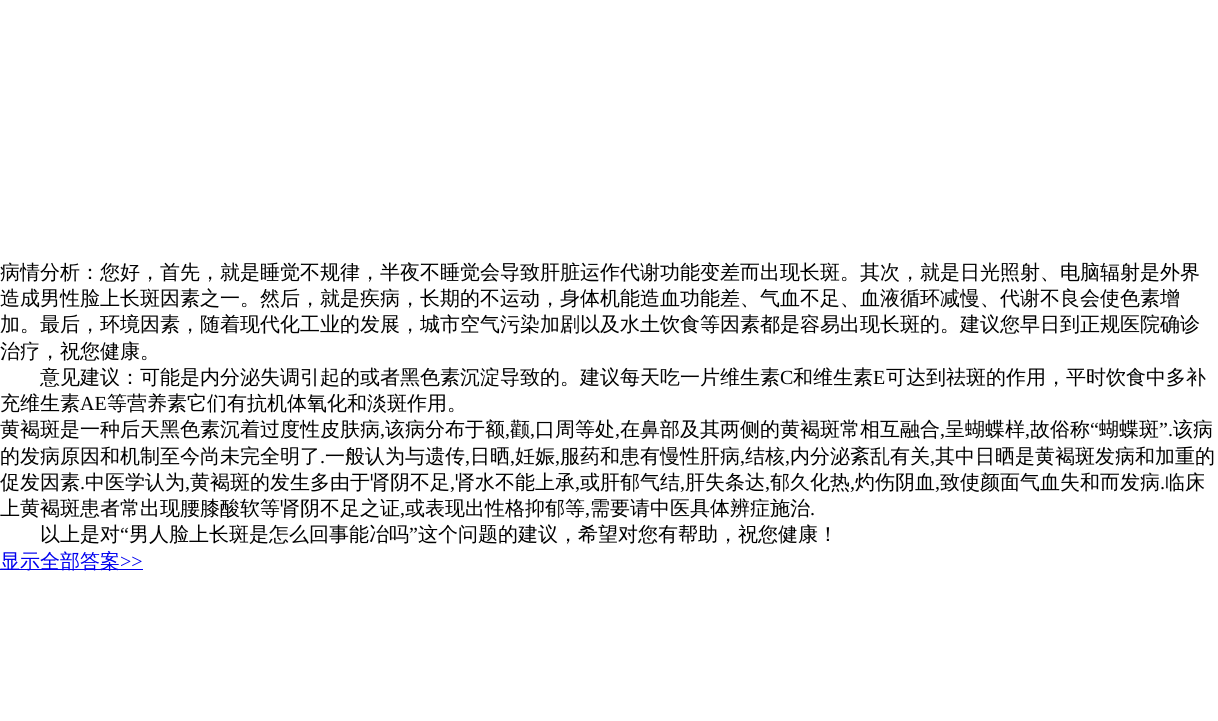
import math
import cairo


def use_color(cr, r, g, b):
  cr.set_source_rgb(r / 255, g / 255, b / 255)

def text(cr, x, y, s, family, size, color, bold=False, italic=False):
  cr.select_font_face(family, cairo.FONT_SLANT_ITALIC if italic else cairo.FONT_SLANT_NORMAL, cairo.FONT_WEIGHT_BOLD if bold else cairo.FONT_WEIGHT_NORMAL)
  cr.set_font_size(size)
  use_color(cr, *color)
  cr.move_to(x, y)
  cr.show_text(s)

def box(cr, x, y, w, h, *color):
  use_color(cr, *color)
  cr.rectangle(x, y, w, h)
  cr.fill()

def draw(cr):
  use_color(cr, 255, 255, 255)
  cr.paint()
  box(cr, 0, 569, 143, 1, 0, 0, 238)
  text(cr, 0, 279, "病情分析：您好，首先，就是睡觉不规律，半夜不睡觉会导致肝脏运作代谢功能变差而出现长斑。其次，就是日光照射、电脑辐射是外界", "WenQuanYi Zen Hei Medium", 20, (0, 0, 0))
  text(cr, 0, 305, "造成男性脸上长斑因素之一。然后，就是疾病，长期的不运动，身体机能造血功能差、气血不足、血液循环减慢、代谢不良会使色素增", "WenQuanYi Zen Hei Medium", 20, (0, 0, 0))
  text(cr, 0, 331, "加。最后，环境因素，随着现代化工业的发展，城市空气污染加剧以及水土饮食等因素都是容易出现长斑的。建议您早日到正规医院确诊", "WenQuanYi Zen Hei Medium", 20, (0, 0, 0))
  text(cr, 0, 358, "治疗，祝您健康。", "WenQuanYi Zen Hei Medium", 20, (0, 0, 0))
  text(cr, 40, 384, "意见建议：可能是内分泌失调引起的或者黑色素沉淀导致的。建议每天吃一片维生素", "WenQuanYi Zen Hei Medium", 20, (0, 0, 0))
  text(cr, 780, 384, "C", "Liberation Serif", 20, (0, 0, 0))
  text(cr, 793, 384, "和维生素", "WenQuanYi Zen Hei Medium", 20, (0, 0, 0))
  text(cr, 873, 384, "E", "Liberation Serif", 20, (0, 0, 0))
  text(cr, 886, 384, "可达到祛斑的作用，平时饮食中多补", "WenQuanYi Zen Hei Medium", 20, (0, 0, 0))
  text(cr, 0, 410, "充维生素", "WenQuanYi Zen Hei Medium", 20, (0, 0, 0))
  text(cr, 80, 410, "AE", "Liberation Serif", 20, (0, 0, 0))
  text(cr, 107, 410, "等营养素它们有抗机体氧化和淡斑作用。", "WenQuanYi Zen Hei Medium", 20, (0, 0, 0))
  text(cr, 0, 436, "黄褐斑是一种后天黑色素沉着过度性皮肤病", "WenQuanYi Zen Hei Medium", 20, (0, 0, 0))
  text(cr, 380, 436, ",", "Liberation Serif", 20, (0, 0, 0))
  text(cr, 385, 436, "该病分布于额", "WenQuanYi Zen Hei Medium", 20, (0, 0, 0))
  text(cr, 505, 436, ",", "Liberation Serif", 20, (0, 0, 0))
  text(cr, 510, 436, "颧", "WenQuanYi Zen Hei Medium", 20, (0, 0, 0))
  text(cr, 530, 436, ",", "Liberation Serif", 20, (0, 0, 0))
  text(cr, 535, 436, "口周等处", "WenQuanYi Zen Hei Medium", 20, (0, 0, 0))
  text(cr, 615, 436, ",", "Liberation Serif", 20, (0, 0, 0))
  text(cr, 620, 436, "在鼻部及其两侧的黄褐斑常相互融合", "WenQuanYi Zen Hei Medium", 20, (0, 0, 0))
  text(cr, 940, 436, ",", "Liberation Serif", 20, (0, 0, 0))
  text(cr, 945, 436, "呈蝴蝶样", "WenQuanYi Zen Hei Medium", 20, (0, 0, 0))
  text(cr, 1025, 436, ",", "Liberation Serif", 20, (0, 0, 0))
  text(cr, 1030, 436, "故俗称", "WenQuanYi Zen Hei Medium", 20, (0, 0, 0))
  text(cr, 1090, 436, "“", "Liberation Serif", 20, (0, 0, 0))
  text(cr, 1099, 436, "蝴蝶斑", "WenQuanYi Zen Hei Medium", 20, (0, 0, 0))
  text(cr, 1159, 436, "”.", "Liberation Serif", 20, (0, 0, 0))
  text(cr, 1173, 436, "该病", "WenQuanYi Zen Hei Medium", 20, (0, 0, 0))
  text(cr, 0, 463, "的发病原因和机制至今尚未完全明了", "WenQuanYi Zen Hei Medium", 20, (0, 0, 0))
  text(cr, 320, 463, ".", "Liberation Serif", 20, (0, 0, 0))
  text(cr, 325, 463, "一般认为与遗传", "WenQuanYi Zen Hei Medium", 20, (0, 0, 0))
  text(cr, 465, 463, ",", "Liberation Serif", 20, (0, 0, 0))
  text(cr, 470, 463, "日晒", "WenQuanYi Zen Hei Medium", 20, (0, 0, 0))
  text(cr, 510, 463, ",", "Liberation Serif", 20, (0, 0, 0))
  text(cr, 515, 463, "妊娠", "WenQuanYi Zen Hei Medium", 20, (0, 0, 0))
  text(cr, 555, 463, ",", "Liberation Serif", 20, (0, 0, 0))
  text(cr, 560, 463, "服药和患有慢性肝病", "WenQuanYi Zen Hei Medium", 20, (0, 0, 0))
  text(cr, 740, 463, ",", "Liberation Serif", 20, (0, 0, 0))
  text(cr, 745, 463, "结核", "WenQuanYi Zen Hei Medium", 20, (0, 0, 0))
  text(cr, 785, 463, ",", "Liberation Serif", 20, (0, 0, 0))
  text(cr, 790, 463, "内分泌紊乱有关", "WenQuanYi Zen Hei Medium", 20, (0, 0, 0))
  text(cr, 930, 463, ",", "Liberation Serif", 20, (0, 0, 0))
  text(cr, 935, 463, "其中日晒是黄褐斑发病和加重的", "WenQuanYi Zen Hei Medium", 20, (0, 0, 0))
  text(cr, 0, 489, "促发因素", "WenQuanYi Zen Hei Medium", 20, (0, 0, 0))
  text(cr, 80, 489, ".", "Liberation Serif", 20, (0, 0, 0))
  text(cr, 85, 489, "中医学认为", "WenQuanYi Zen Hei Medium", 20, (0, 0, 0))
  text(cr, 185, 489, ",", "Liberation Serif", 20, (0, 0, 0))
  text(cr, 190, 489, "黄褐斑的发生多由于肾阴不足", "WenQuanYi Zen Hei Medium", 20, (0, 0, 0))
  text(cr, 450, 489, ",", "Liberation Serif", 20, (0, 0, 0))
  text(cr, 455, 489, "肾水不能上承", "WenQuanYi Zen Hei Medium", 20, (0, 0, 0))
  text(cr, 575, 489, ",", "Liberation Serif", 20, (0, 0, 0))
  text(cr, 580, 489, "或肝郁气结", "WenQuanYi Zen Hei Medium", 20, (0, 0, 0))
  text(cr, 680, 489, ",", "Liberation Serif", 20, (0, 0, 0))
  text(cr, 685, 489, "肝失条达", "WenQuanYi Zen Hei Medium", 20, (0, 0, 0))
  text(cr, 765, 489, ",", "Liberation Serif", 20, (0, 0, 0))
  text(cr, 770, 489, "郁久化热", "WenQuanYi Zen Hei Medium", 20, (0, 0, 0))
  text(cr, 850, 489, ",", "Liberation Serif", 20, (0, 0, 0))
  text(cr, 855, 489, "灼伤阴血", "WenQuanYi Zen Hei Medium", 20, (0, 0, 0))
  text(cr, 935, 489, ",", "Liberation Serif", 20, (0, 0, 0))
  text(cr, 940, 489, "致使颜面气血失和而发病", "WenQuanYi Zen Hei Medium", 20, (0, 0, 0))
  text(cr, 1160, 489, ".", "Liberation Serif", 20, (0, 0, 0))
  text(cr, 1165, 489, "临床", "WenQuanYi Zen Hei Medium", 20, (0, 0, 0))
  text(cr, 0, 515, "上黄褐斑患者常出现腰膝酸软等肾阴不足之证", "WenQuanYi Zen Hei Medium", 20, (0, 0, 0))
  text(cr, 400, 515, ",", "Liberation Serif", 20, (0, 0, 0))
  text(cr, 405, 515, "或表现出性格抑郁等", "WenQuanYi Zen Hei Medium", 20, (0, 0, 0))
  text(cr, 585, 515, ",", "Liberation Serif", 20, (0, 0, 0))
  text(cr, 590, 515, "需要请中医具体辨症施治", "WenQuanYi Zen Hei Medium", 20, (0, 0, 0))
  text(cr, 810, 515, ".", "Liberation Serif", 20, (0, 0, 0))
  text(cr, 40, 541, "以上是对", "WenQuanYi Zen Hei Medium", 20, (0, 0, 0))
  text(cr, 120, 541, "“", "Liberation Serif", 20, (0, 0, 0))
  text(cr, 129, 541, "男人脸上长斑是怎么回事能冶吗", "WenQuanYi Zen Hei Medium", 20, (0, 0, 0))
  text(cr, 409, 541, "”", "Liberation Serif", 20, (0, 0, 0))
  text(cr, 418, 541, "这个问题的建议，希望对您有帮助，祝您健康！", "WenQuanYi Zen Hei Medium", 20, (0, 0, 0))
  text(cr, 0, 568, "显示全部答案", "WenQuanYi Zen Hei Medium", 20, (0, 0, 238))
  text(cr, 120, 568, ">>", "Liberation Serif", 20, (0, 0, 238))


surface = cairo.ImageSurface(cairo.FORMAT_RGB24, 1218, 721)
cr = cairo.Context(surface)
options = cairo.FontOptions()
options.set_hint_metrics(cairo.HINT_METRICS_OFF)
options.set_hint_style(cairo.HINT_STYLE_NONE)
cr.set_font_options(options)
cr.set_miter_limit(4)
draw(cr)
surface.write_to_png("out.png")
